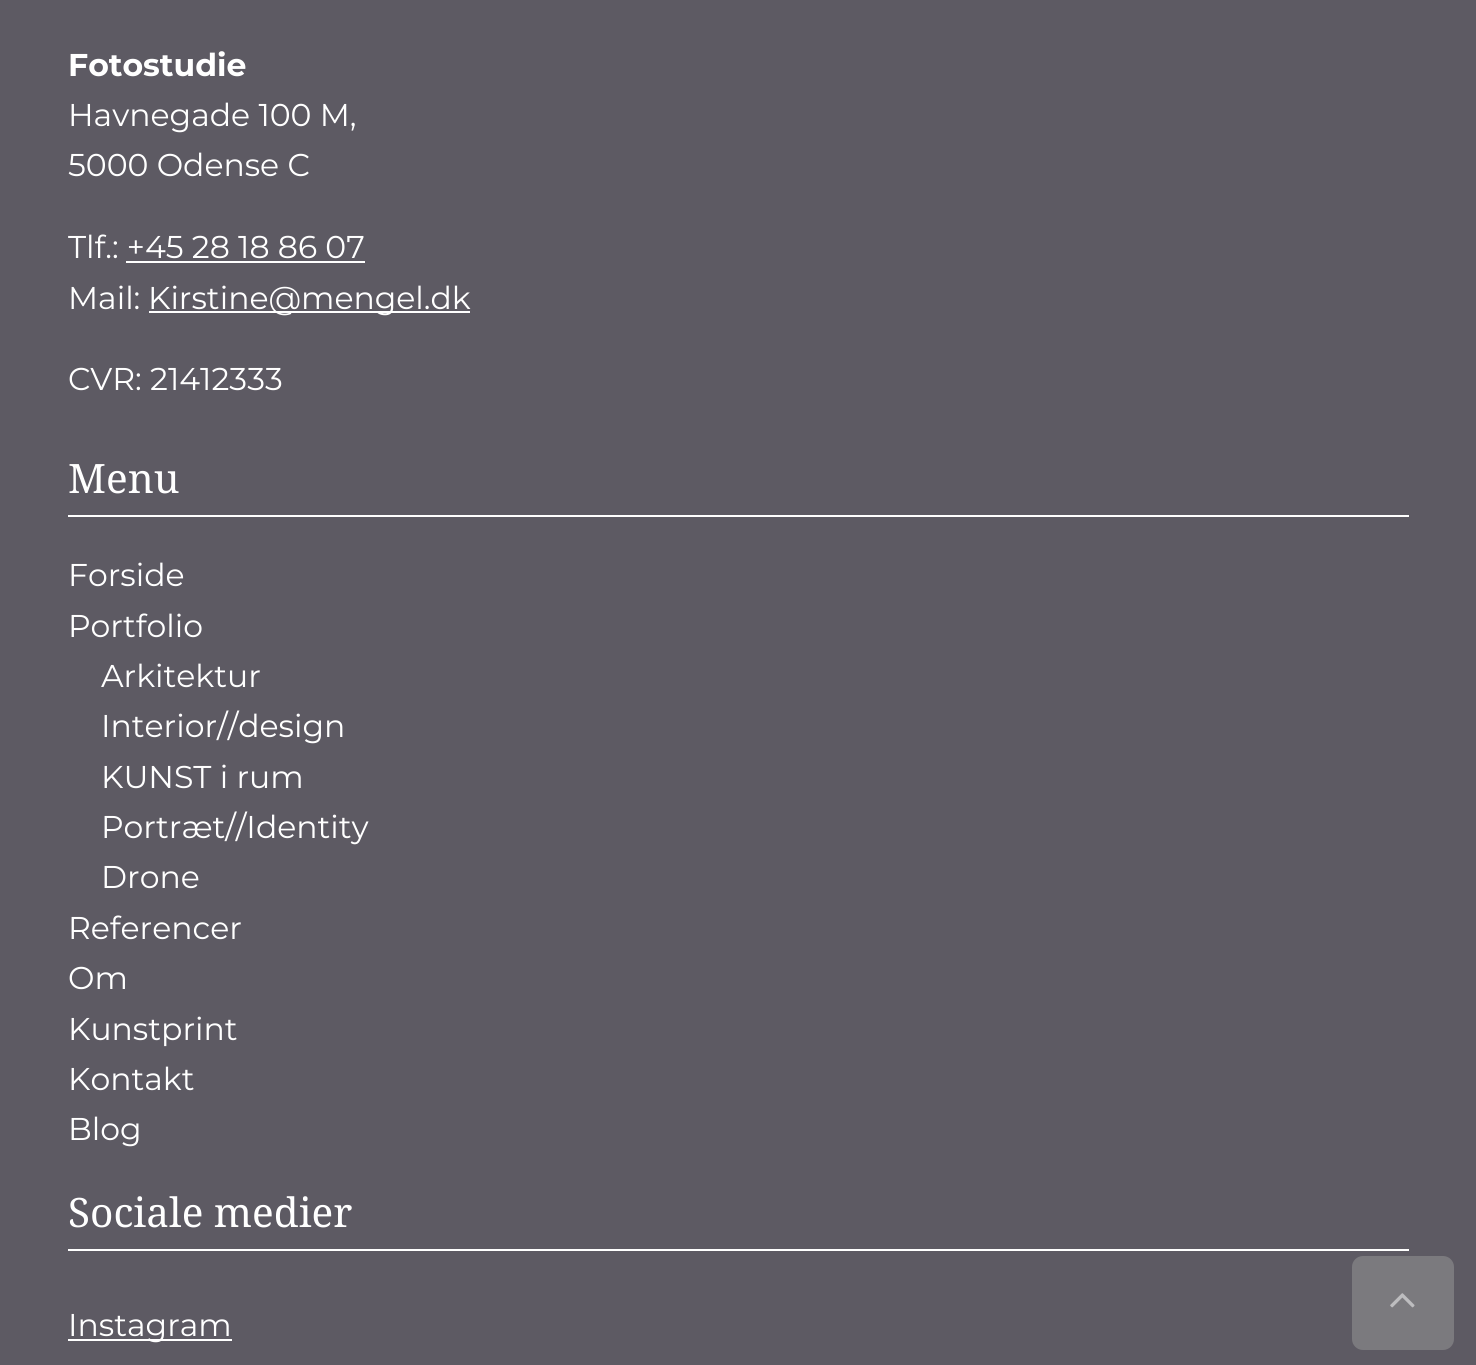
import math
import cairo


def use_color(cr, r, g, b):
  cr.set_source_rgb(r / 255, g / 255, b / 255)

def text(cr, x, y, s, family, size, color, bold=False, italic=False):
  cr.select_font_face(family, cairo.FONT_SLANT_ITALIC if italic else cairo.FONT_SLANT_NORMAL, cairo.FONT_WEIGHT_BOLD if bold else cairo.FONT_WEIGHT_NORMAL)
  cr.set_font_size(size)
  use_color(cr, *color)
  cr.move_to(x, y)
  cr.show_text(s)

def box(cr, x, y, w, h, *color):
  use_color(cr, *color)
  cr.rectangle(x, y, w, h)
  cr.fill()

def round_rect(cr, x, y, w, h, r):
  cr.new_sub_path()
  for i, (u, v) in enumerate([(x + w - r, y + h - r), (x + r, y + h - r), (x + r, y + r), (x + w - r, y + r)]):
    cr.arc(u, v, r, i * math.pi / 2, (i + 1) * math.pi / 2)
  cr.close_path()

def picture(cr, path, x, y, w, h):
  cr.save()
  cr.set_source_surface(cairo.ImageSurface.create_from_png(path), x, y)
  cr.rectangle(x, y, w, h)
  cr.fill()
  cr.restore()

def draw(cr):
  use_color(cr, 93, 90, 99)
  cr.paint()
  box(cr, 126, 261, 239, 2, 255, 255, 255)
  box(cr, 149, 311, 321, 2, 255, 255, 255)
  box(cr, 68, 515, 1341, 2, 255, 255, 255)
  box(cr, 68, 1249, 1341, 2, 255, 255, 255)
  box(cr, 68, 1339, 164, 2, 255, 255, 255)
  use_color(cr, 123, 122, 126)
  round_rect(cr, 1352, 1256, 102, 94, 11)
  cr.fill()
  picture(cr, "img_01.png", 1390, 1293, 25, 15)
  text(cr, 68, 76, "Fotostudie", "Montserrat", 31.5, (255, 255, 255), bold=True)
  text(cr, 68, 126, "Havnegade 100 M,", "Montserrat", 31.5, (255, 255, 255))
  text(cr, 68, 176, "5000 Odense C", "Montserrat", 31.5, (255, 255, 255))
  text(cr, 68, 258, "Tlf.: +45 28 18 86 07", "Montserrat", 31.5, (255, 255, 255))
  text(cr, 68, 309, "Mail:", "Montserrat", 31.5, (255, 255, 255))
  text(cr, 148, 309, "Kirstine@mengel.dk", "Montserrat", 31.5, (255, 255, 255))
  text(cr, 68, 390, "CVR: 21412333", "Montserrat", 31.5, (255, 255, 255))
  text(cr, 68, 493, "Menu", "Noto Serif", 40.5, (255, 255, 255))
  text(cr, 68, 586, "Forside", "Montserrat", 31.5, (255, 255, 255))
  text(cr, 68, 637, "Portfolio", "Montserrat", 31.5, (255, 255, 255))
  text(cr, 101, 687, "Arkitektur", "Montserrat", 31.5, (255, 255, 255))
  text(cr, 101, 737, "Interior//design", "Montserrat", 31.5, (255, 255, 255))
  text(cr, 101, 788, "KUNST i rum", "Montserrat", 31.5, (255, 255, 255))
  text(cr, 101, 838, "Portræt//Identity", "Montserrat", 31.5, (255, 255, 255))
  text(cr, 101, 888, "Drone", "Montserrat", 31.5, (255, 255, 255))
  text(cr, 68, 939, "Referencer", "Montserrat", 31.5, (255, 255, 255))
  text(cr, 68, 989, "Om", "Montserrat", 31.5, (255, 255, 255))
  text(cr, 68, 1040, "Kunstprint", "Montserrat", 31.5, (255, 255, 255))
  text(cr, 68, 1090, "Kontakt", "Montserrat", 31.5, (255, 255, 255))
  text(cr, 68, 1140, "Blog", "Montserrat", 31.5, (255, 255, 255))
  text(cr, 68, 1227, "Sociale medier", "Noto Serif", 40.5, (255, 255, 255))
  text(cr, 68, 1336, "Instagram", "Montserrat", 31.5, (255, 255, 255))


surface = cairo.ImageSurface(cairo.FORMAT_RGB24, 1476, 1365)
cr = cairo.Context(surface)
options = cairo.FontOptions()
options.set_hint_metrics(cairo.HINT_METRICS_OFF)
options.set_hint_style(cairo.HINT_STYLE_NONE)
cr.set_font_options(options)
cr.set_miter_limit(4)
draw(cr)
surface.write_to_png("out.png")
